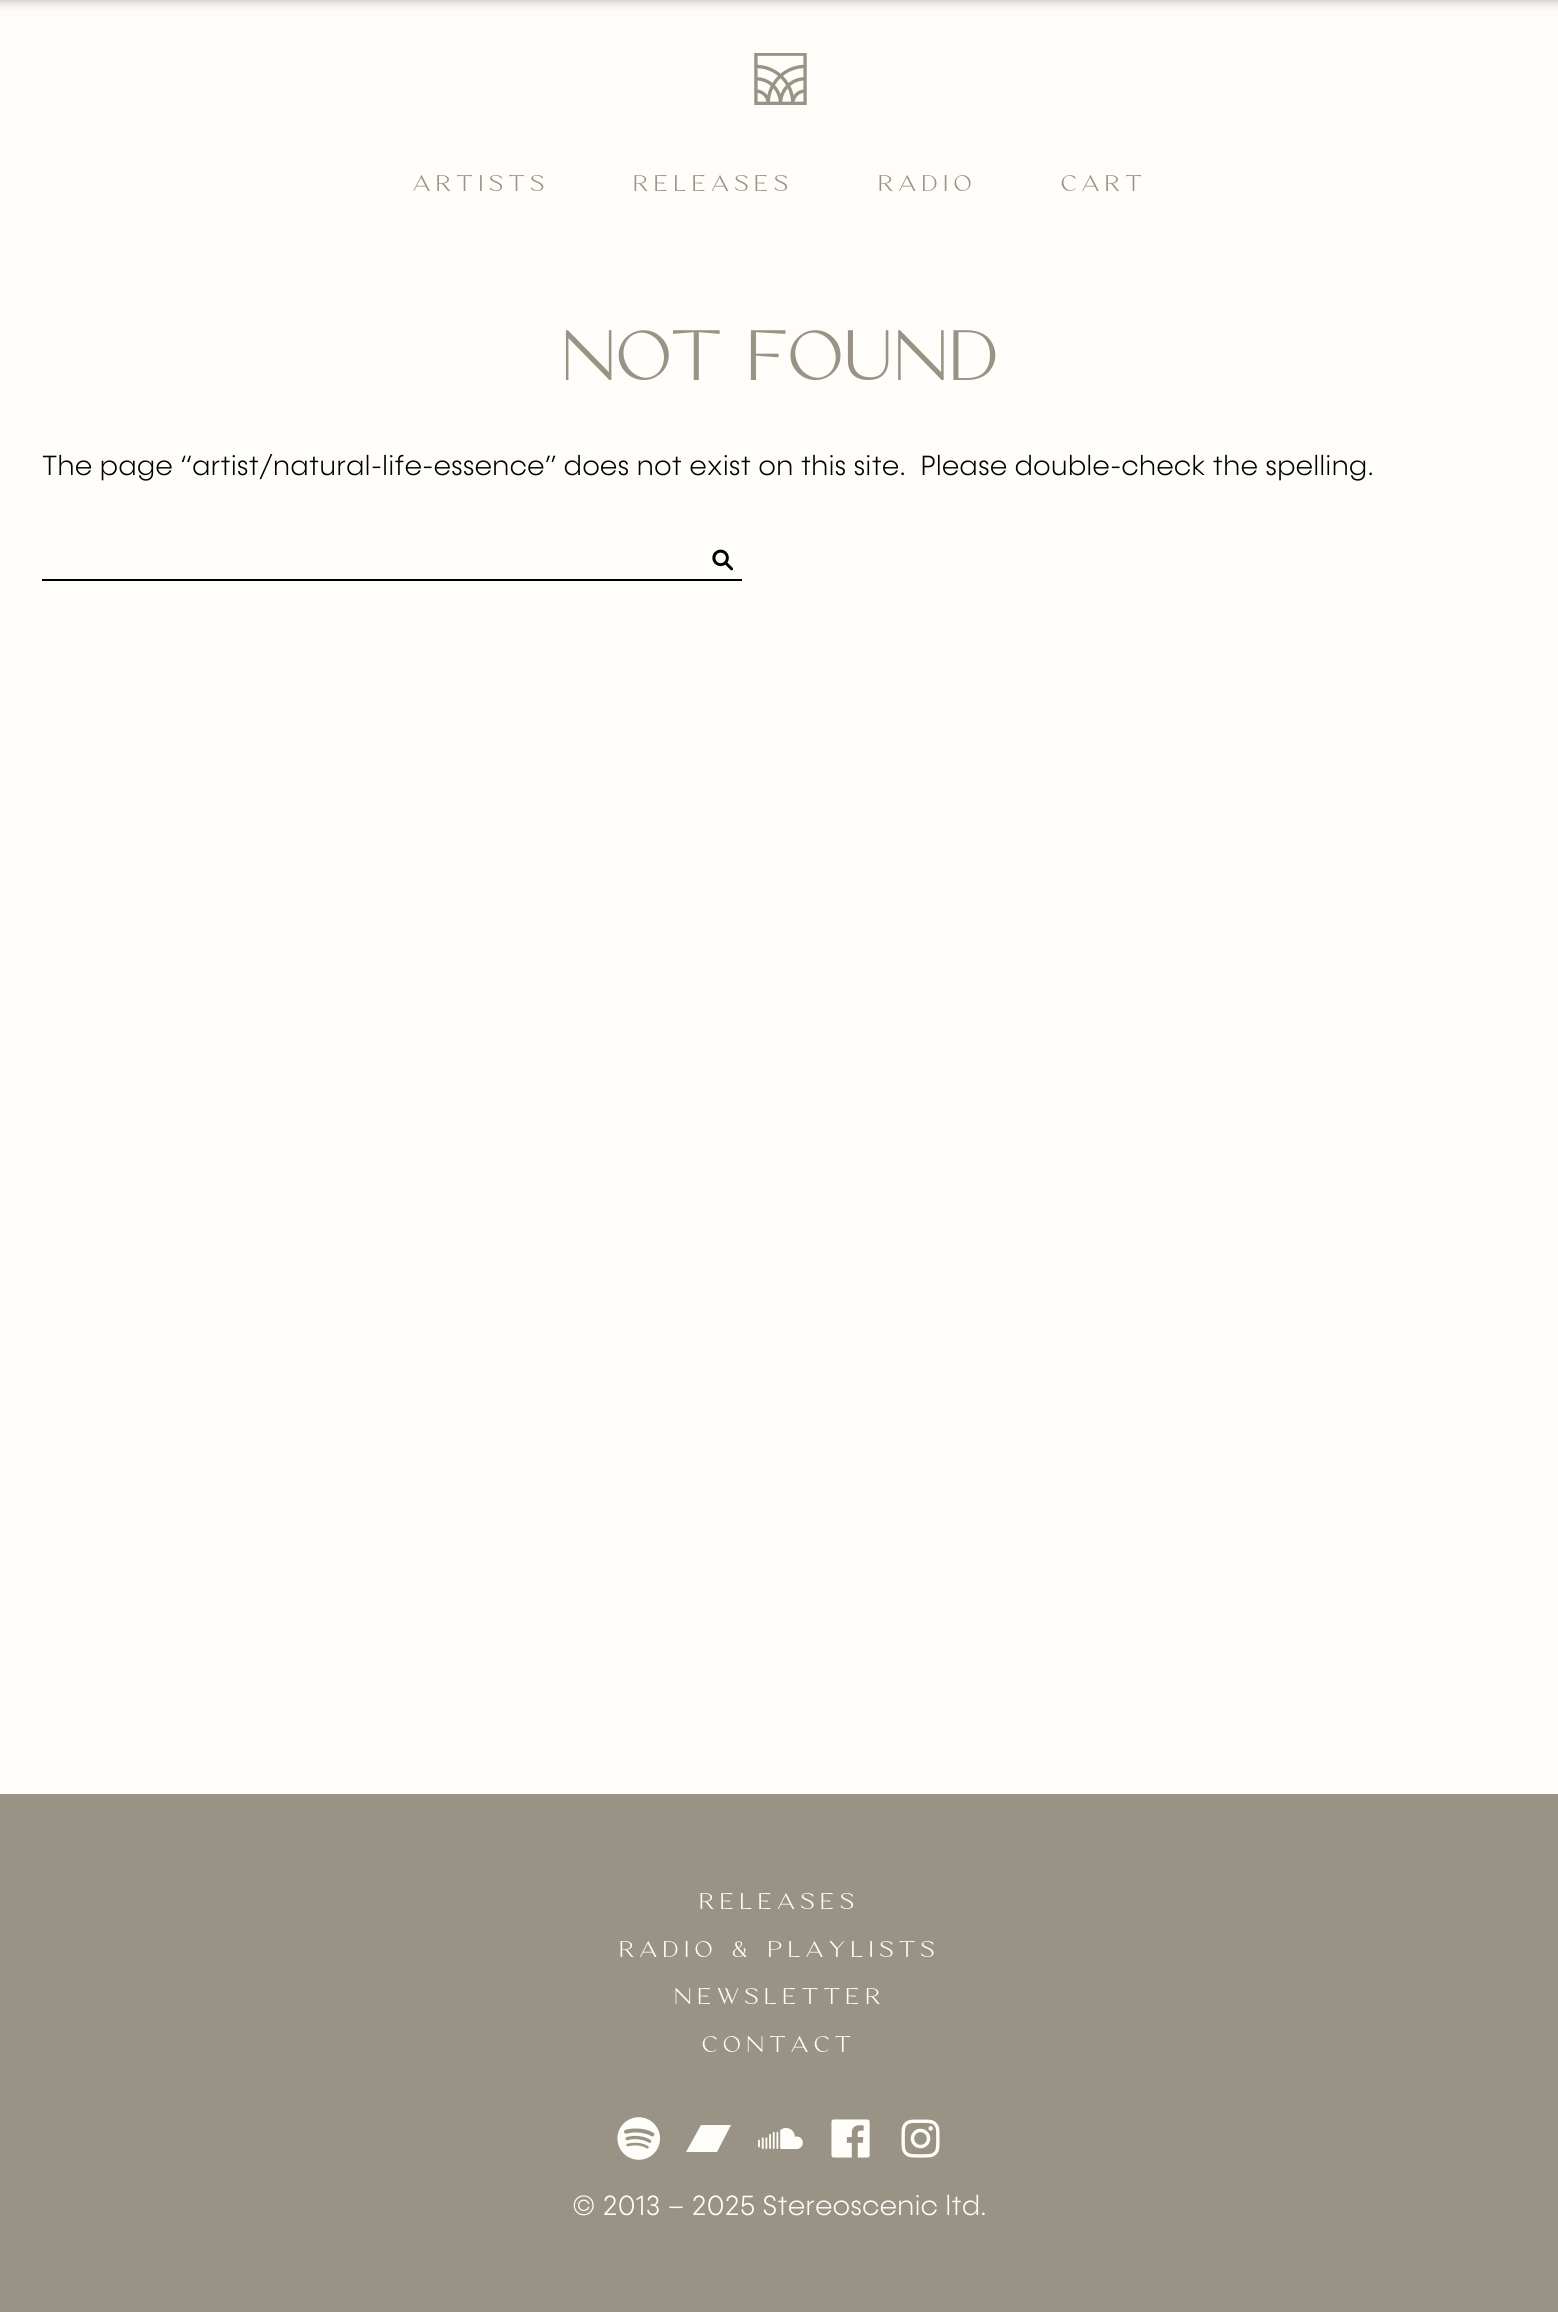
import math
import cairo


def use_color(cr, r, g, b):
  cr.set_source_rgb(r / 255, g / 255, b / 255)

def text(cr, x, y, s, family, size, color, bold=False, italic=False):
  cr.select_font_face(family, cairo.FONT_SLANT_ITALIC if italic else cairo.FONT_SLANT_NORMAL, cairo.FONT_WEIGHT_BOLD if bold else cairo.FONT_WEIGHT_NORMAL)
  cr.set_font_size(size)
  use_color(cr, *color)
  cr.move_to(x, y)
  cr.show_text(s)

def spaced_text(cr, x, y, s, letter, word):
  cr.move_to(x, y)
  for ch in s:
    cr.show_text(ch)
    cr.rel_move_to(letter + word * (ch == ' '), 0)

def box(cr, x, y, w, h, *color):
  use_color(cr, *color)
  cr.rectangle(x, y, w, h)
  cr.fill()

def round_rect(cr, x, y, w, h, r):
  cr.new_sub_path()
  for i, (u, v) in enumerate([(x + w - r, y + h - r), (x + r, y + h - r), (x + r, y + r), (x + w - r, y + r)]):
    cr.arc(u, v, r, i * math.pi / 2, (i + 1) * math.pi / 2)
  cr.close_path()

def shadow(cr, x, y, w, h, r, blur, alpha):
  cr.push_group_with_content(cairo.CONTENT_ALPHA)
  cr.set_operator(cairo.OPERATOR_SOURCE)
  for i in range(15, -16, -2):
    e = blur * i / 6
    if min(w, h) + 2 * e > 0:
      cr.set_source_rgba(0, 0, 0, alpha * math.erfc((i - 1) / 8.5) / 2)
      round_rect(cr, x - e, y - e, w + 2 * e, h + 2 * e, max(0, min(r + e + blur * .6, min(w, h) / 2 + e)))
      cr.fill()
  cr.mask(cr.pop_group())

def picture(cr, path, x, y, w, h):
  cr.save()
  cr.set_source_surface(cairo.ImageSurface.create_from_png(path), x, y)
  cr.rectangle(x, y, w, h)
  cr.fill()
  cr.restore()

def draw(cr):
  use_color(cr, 255, 253, 250)
  cr.paint()
  use_color(cr, 0, 0, 0)
  shadow(cr, -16, -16, 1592, 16, 0, 6, 0.3)
  picture(cr, "img_01.png", 754, 53, 53, 52)
  box(cr, 42, 579, 700, 2, 0, 0, 0)
  picture(cr, "img_02.png", 712, 549, 22, 22)
  box(cr, 0, 1794, 1558, 518, 152, 147, 133)
  picture(cr, "img_03.png", 617, 2117, 43, 43)
  use_color(cr, 255, 253, 250)
  cr.new_path()
  cr.move_to(717, 2152)
  cr.line_to(686, 2152)
  cr.line_to(701, 2125)
  cr.line_to(731, 2125)
  cr.line_to(717, 2152)
  cr.fill()
  picture(cr, "img_04.png", 758, 2128, 45, 21)
  picture(cr, "img_05.png", 831, 2119, 39, 39)
  picture(cr, "img_06.png", 901, 2119, 39, 39)
  cr.select_font_face("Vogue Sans")
  cr.set_font_size(28)
  use_color(cr, 152, 147, 133)
  spaced_text(cr, 413, 191, "ARTISTS", 5.6, 0)
  spaced_text(cr, 633, 191, "RELEASES", 5.6, 0)
  spaced_text(cr, 878, 191, "RADIO", 5.6, 0)
  spaced_text(cr, 1061, 191, "CART", 5.6, 0)
  text(cr, 561, 380, "NOT FOUND", "Vogue Sans", 87.5, (152, 147, 133))
  text(cr, 42, 475, "The page “artist/natural-life-essence” does not exist on this site.  Please double-check the spelling.", "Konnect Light", 28, (0, 0, 0))
  cr.select_font_face("Vogue Sans")
  use_color(cr, 255, 253, 250)
  spaced_text(cr, 699, 1909, "RELEASES", 5.6, 0)
  spaced_text(cr, 619, 1957, "RADIO & PLAYLISTS", 5.6, 0)
  spaced_text(cr, 674, 2004, "NEWSLETTER", 5.6, 0)
  spaced_text(cr, 702, 2052, "CONTACT", 5.6, 0)
  text(cr, 572, 2215, "© 2013 – 2025 Stereoscenic ltd.", "Konnect Light", 28, (255, 253, 250))


surface = cairo.ImageSurface(cairo.FORMAT_RGB24, 1558, 2312)
cr = cairo.Context(surface)
options = cairo.FontOptions()
options.set_hint_metrics(cairo.HINT_METRICS_OFF)
options.set_hint_style(cairo.HINT_STYLE_NONE)
cr.set_font_options(options)
cr.set_miter_limit(4)
draw(cr)
surface.write_to_png("out.png")
